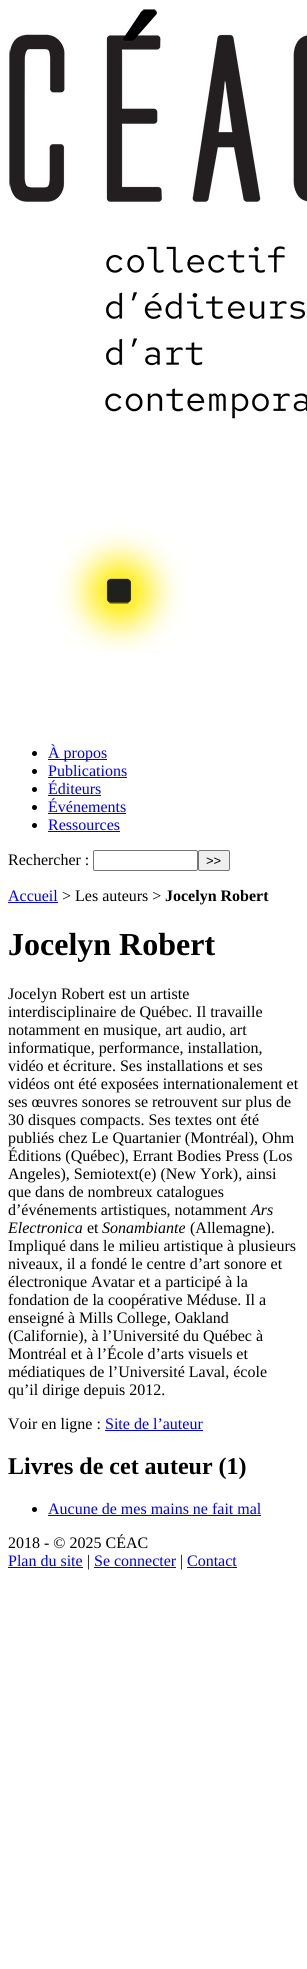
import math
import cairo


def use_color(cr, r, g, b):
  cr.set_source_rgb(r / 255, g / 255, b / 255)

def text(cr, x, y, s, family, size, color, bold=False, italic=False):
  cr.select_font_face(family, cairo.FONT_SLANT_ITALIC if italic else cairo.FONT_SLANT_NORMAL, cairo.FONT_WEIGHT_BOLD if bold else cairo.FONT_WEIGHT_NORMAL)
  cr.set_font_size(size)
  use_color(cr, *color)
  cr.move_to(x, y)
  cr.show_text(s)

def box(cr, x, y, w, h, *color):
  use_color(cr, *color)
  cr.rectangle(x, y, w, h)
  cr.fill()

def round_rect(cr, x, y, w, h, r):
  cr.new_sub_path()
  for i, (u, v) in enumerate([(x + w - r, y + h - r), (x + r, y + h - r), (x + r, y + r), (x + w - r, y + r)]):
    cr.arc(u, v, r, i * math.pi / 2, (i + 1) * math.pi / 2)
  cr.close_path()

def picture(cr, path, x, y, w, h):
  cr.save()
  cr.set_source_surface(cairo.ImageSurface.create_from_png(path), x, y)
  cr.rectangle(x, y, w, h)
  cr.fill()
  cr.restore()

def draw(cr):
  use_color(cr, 255, 255, 255)
  cr.paint()
  picture(cr, "img_01.png", 9, 9, 298, 645)
  use_color(cr, 0, 0, 0)
  cr.arc(34.5, 753.5, 2.5, 0, 2 * math.pi)
  cr.fill()
  box(cr, 48, 759, 59, 1, 0, 0, 238)
  use_color(cr, 0, 0, 0)
  cr.arc(34.5, 771.5, 2.5, 0, 2 * math.pi)
  cr.fill()
  box(cr, 48, 777, 79, 1, 0, 0, 238)
  use_color(cr, 0, 0, 0)
  cr.arc(34.5, 789.5, 2.5, 0, 2 * math.pi)
  cr.fill()
  box(cr, 48, 795, 53, 1, 0, 0, 238)
  use_color(cr, 0, 0, 0)
  cr.arc(34.5, 807.5, 2.5, 0, 2 * math.pi)
  cr.fill()
  box(cr, 48, 813, 78, 1, 0, 0, 238)
  use_color(cr, 0, 0, 0)
  cr.arc(34.5, 825.5, 2.5, 0, 2 * math.pi)
  cr.fill()
  box(cr, 48, 831, 72, 1, 0, 0, 238)
  round_rect(cr, 93.5, 850.5, 104, 20, 1.5)
  use_color(cr, 118, 118, 118)
  cr.set_line_width(1)
  cr.stroke()
  use_color(cr, 239, 239, 239)
  round_rect(cr, 198.5, 850.5, 31, 20, 1.5)
  cr.fill_preserve()
  use_color(cr, 118, 118, 118)
  cr.stroke()
  box(cr, 8, 902, 50, 1, 0, 0, 238)
  box(cr, 105, 1430, 98, 1, 0, 0, 238)
  use_color(cr, 0, 0, 0)
  cr.arc(34.5, 1509.5, 2.5, 0, 2 * math.pi)
  cr.fill()
  box(cr, 48, 1515, 213, 1, 0, 0, 238)
  box(cr, 8, 1567, 75, 1, 0, 0, 238)
  box(cr, 94, 1567, 82, 1, 0, 0, 238)
  box(cr, 187, 1567, 50, 1, 0, 0, 238)
  text(cr, 48, 758, "À propos", "Liberation Serif", 16, (0, 0, 238))
  text(cr, 48, 776, "Publications", "Liberation Serif", 16, (0, 0, 238))
  text(cr, 48, 794, "Éditeurs", "Liberation Serif", 16, (0, 0, 238))
  text(cr, 48, 812, "Événements", "Liberation Serif", 16, (0, 0, 238))
  text(cr, 48, 830, "Ressources", "Liberation Serif", 16, (0, 0, 238))
  text(cr, 8, 865, "Rechercher :", "Liberation Serif", 16, (0, 0, 0))
  text(cr, 206, 865, ">>", "Liberation Sans", 13, (0, 0, 0))
  text(cr, 8, 901, "Accueil", "Liberation Serif", 16, (0, 0, 238))
  text(cr, 62, 901, "> Les auteurs >", "Liberation Serif", 16, (0, 0, 0))
  text(cr, 165, 901, "Jocelyn Robert", "Liberation Serif", 16, (0, 0, 0), bold=True)
  text(cr, 8, 955, "Jocelyn Robert", "Liberation Serif", 32, (0, 0, 0), bold=True)
  text(cr, 8, 999, "Jocelyn Robert est un artiste", "Liberation Serif", 16, (0, 0, 0))
  text(cr, 8, 1017, "interdisciplinaire de Québec. Il travaille", "Liberation Serif", 16, (0, 0, 0))
  text(cr, 8, 1035, "notamment en musique, art audio, art", "Liberation Serif", 16, (0, 0, 0))
  text(cr, 8, 1053, "informatique, performance, installation,", "Liberation Serif", 16, (0, 0, 0))
  text(cr, 8, 1071, "vidéo et écriture. Ses installations et ses", "Liberation Serif", 16, (0, 0, 0))
  text(cr, 8, 1089, "vidéos ont été exposées internationalement et", "Liberation Serif", 16, (0, 0, 0))
  text(cr, 8, 1107, "ses œuvres sonores se retrouvent sur plus de", "Liberation Serif", 16, (0, 0, 0))
  text(cr, 8, 1125, "30 disques compacts. Ses textes ont été", "Liberation Serif", 16, (0, 0, 0))
  text(cr, 8, 1143, "publiés chez Le Quartanier (Montréal), Ohm", "Liberation Serif", 16, (0, 0, 0))
  text(cr, 8, 1161, "Éditions (Québec), Errant Bodies Press (Los", "Liberation Serif", 16, (0, 0, 0))
  text(cr, 8, 1179, "Angeles), Semiotext(e) (New York), ainsi", "Liberation Serif", 16, (0, 0, 0))
  text(cr, 8, 1197, "que dans de nombreux catalogues", "Liberation Serif", 16, (0, 0, 0))
  text(cr, 8, 1215, "d’événements artistiques, notamment", "Liberation Serif", 16, (0, 0, 0))
  text(cr, 251, 1215, "Ars", "Liberation Serif", 16, (0, 0, 0), italic=True)
  text(cr, 8, 1233, "Electronica", "Liberation Serif", 16, (0, 0, 0), italic=True)
  text(cr, 87, 1233, "et", "Liberation Serif", 16, (0, 0, 0))
  text(cr, 102, 1233, "Sonambiante", "Liberation Serif", 16, (0, 0, 0), italic=True)
  text(cr, 190, 1233, "(Allemagne).", "Liberation Serif", 16, (0, 0, 0))
  text(cr, 8, 1251, "Impliqué dans le milieu artistique à plusieurs", "Liberation Serif", 16, (0, 0, 0))
  text(cr, 8, 1269, "niveaux, il a fondé le centre d’art sonore et", "Liberation Serif", 16, (0, 0, 0))
  text(cr, 8, 1287, "électronique Avatar et a participé à la", "Liberation Serif", 16, (0, 0, 0))
  text(cr, 8, 1305, "fondation de la coopérative Méduse. Il a", "Liberation Serif", 16, (0, 0, 0))
  text(cr, 8, 1323, "enseigné à Mills College, Oakland", "Liberation Serif", 16, (0, 0, 0))
  text(cr, 8, 1341, "(Californie), à l’Université du Québec à", "Liberation Serif", 16, (0, 0, 0))
  text(cr, 8, 1359, "Montréal et à l’École d’arts visuels et", "Liberation Serif", 16, (0, 0, 0))
  text(cr, 8, 1377, "médiatiques de l’Université Laval, école", "Liberation Serif", 16, (0, 0, 0))
  text(cr, 8, 1395, "qu’il dirige depuis 2012.", "Liberation Serif", 16, (0, 0, 0))
  text(cr, 8, 1429, "Voir en ligne :", "Liberation Serif", 16, (0, 0, 0))
  text(cr, 105, 1429, "Site de l’auteur", "Liberation Serif", 16, (0, 0, 238))
  text(cr, 8, 1474, "Livres de cet auteur (1)", "Liberation Serif", 24, (0, 0, 0), bold=True)
  text(cr, 48, 1514, "Aucune de mes mains ne fait mal", "Liberation Serif", 16, (0, 0, 238))
  text(cr, 8, 1548, "2018 - © 2025 CÉAC", "Liberation Serif", 16, (0, 0, 0))
  text(cr, 8, 1566, "Plan du site", "Liberation Serif", 16, (0, 0, 238))
  text(cr, 87, 1566, "|", "Liberation Serif", 16, (0, 0, 0))
  text(cr, 94, 1566, "Se connecter", "Liberation Serif", 16, (0, 0, 238))
  text(cr, 180, 1566, "|", "Liberation Serif", 16, (0, 0, 0))
  text(cr, 187, 1566, "Contact", "Liberation Serif", 16, (0, 0, 238))


surface = cairo.ImageSurface(cairo.FORMAT_RGB24, 307, 1969)
cr = cairo.Context(surface)
options = cairo.FontOptions()
options.set_hint_metrics(cairo.HINT_METRICS_OFF)
options.set_hint_style(cairo.HINT_STYLE_NONE)
cr.set_font_options(options)
cr.set_miter_limit(4)
draw(cr)
surface.write_to_png("out.png")
